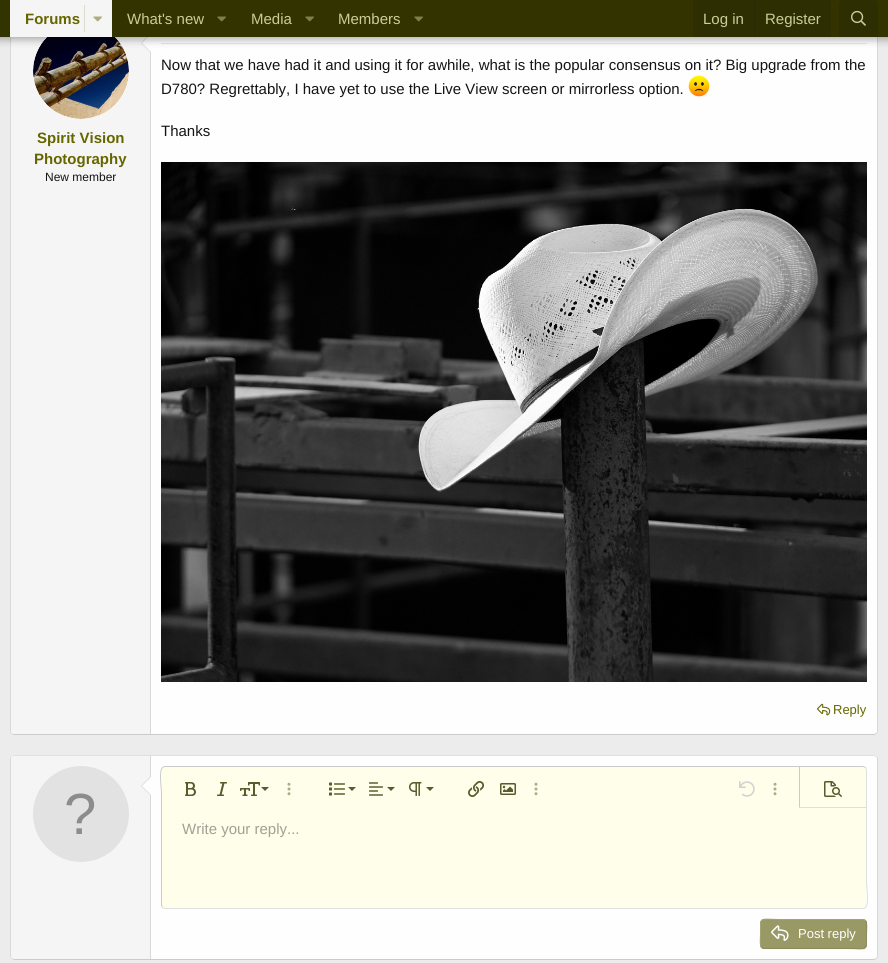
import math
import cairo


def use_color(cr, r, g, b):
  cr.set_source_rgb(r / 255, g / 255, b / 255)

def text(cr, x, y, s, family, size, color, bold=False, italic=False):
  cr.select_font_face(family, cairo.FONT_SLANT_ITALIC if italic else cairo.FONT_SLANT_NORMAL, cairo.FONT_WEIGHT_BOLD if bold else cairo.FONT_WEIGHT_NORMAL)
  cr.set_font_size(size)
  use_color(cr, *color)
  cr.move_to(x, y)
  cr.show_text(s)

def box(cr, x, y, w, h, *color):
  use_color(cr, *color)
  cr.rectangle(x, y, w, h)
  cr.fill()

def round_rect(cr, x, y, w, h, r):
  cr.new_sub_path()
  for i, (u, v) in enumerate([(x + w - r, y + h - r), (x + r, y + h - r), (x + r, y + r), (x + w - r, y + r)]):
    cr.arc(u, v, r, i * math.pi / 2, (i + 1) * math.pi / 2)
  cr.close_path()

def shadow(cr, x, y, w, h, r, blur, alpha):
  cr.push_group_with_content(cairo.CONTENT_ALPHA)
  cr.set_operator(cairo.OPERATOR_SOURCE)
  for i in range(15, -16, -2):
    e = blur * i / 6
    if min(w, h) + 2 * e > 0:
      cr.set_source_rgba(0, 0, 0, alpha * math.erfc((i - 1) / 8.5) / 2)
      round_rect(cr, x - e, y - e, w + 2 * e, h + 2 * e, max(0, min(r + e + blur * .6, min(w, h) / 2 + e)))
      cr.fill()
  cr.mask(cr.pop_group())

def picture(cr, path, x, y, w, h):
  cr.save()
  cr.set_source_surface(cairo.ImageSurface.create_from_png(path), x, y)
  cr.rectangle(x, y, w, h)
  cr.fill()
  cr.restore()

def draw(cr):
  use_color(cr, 236, 236, 236)
  cr.paint()
  use_color(cr, 254, 254, 254)
  round_rect(cr, 10, 12, 868, 723, 4)
  cr.fill()
  cr.new_path()
  cr.move_to(876.5, 13.5)
  cr.curve_to(877, 14, 877.5, 15, 877.5, 16)
  cr.line_to(877.5, 731)
  cr.curve_to(877.5, 732, 877, 733, 876.5, 733.5)
  use_color(cr, 216, 216, 216)
  cr.set_line_width(1)
  cr.stroke()
  cr.new_path()
  cr.move_to(876.5, 733.5)
  cr.line_to(874, 734.5)
  cr.line_to(14, 734.5)
  cr.line_to(11.5, 733.5)
  use_color(cr, 203, 203, 203)
  cr.stroke()
  cr.new_path()
  cr.move_to(11.5, 733.5)
  cr.curve_to(11, 733, 10.5, 732, 10.5, 731)
  cr.line_to(10.5, 16)
  cr.curve_to(10.5, 15, 11, 14, 11.5, 13.5)
  use_color(cr, 216, 216, 216)
  cr.stroke()
  use_color(cr, 245, 245, 245)
  cr.new_path()
  cr.move_to(14, 13)
  cr.line_to(151, 13)
  cr.line_to(151, 734)
  cr.line_to(14, 734)
  cr.curve_to(12.5, 734, 11, 732.5, 11, 731)
  cr.line_to(11, 16)
  cr.curve_to(11, 14.5, 12.5, 13, 14, 13)
  cr.close_path()
  cr.fill()
  box(cr, 150, 52, 1, 682, 216, 216, 216)
  use_color(cr, 254, 254, 254)
  cr.arc(81, 71, 48, 0, 2 * math.pi)
  cr.fill()
  picture(cr, "img_04.png", 33, 37, 96, 82)
  use_color(cr, 216, 216, 216)
  cr.new_path()
  cr.move_to(151, 33)
  cr.line_to(151, 53)
  cr.line_to(141, 43)
  cr.close_path()
  cr.fill()
  use_color(cr, 254, 254, 254)
  cr.new_path()
  cr.move_to(151, 34)
  cr.line_to(151, 52)
  cr.line_to(142, 43)
  cr.close_path()
  cr.fill()
  box(cr, 161, 43, 706, 1, 231, 231, 231)
  use_color(cr, 0, 0, 0)
  shadow(cr, -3, -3, 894, 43, 0, 4, 0.3)
  box(cr, 0, 0, 888, 37, 51, 51, 0)
  box(cr, 10, 0, 102, 37, 245, 245, 245)
  box(cr, 84, 5, 1, 27, 220, 220, 202)
  picture(cr, "img_01.png", 93, 16, 9, 6)
  picture(cr, "img_02.png", 217, 16, 9, 6)
  picture(cr, "img_02.png", 305, 16, 9, 6)
  picture(cr, "img_02.png", 414, 16, 9, 6)
  box(cr, 693, 0, 138, 37, 46, 46, 3)
  box(cr, 754, 0, 1, 37, 42, 42, 6)
  use_color(cr, 46, 46, 3)
  cr.new_path()
  cr.move_to(843, 0)
  cr.line_to(874, 0)
  cr.curve_to(876, 0, 878, 2, 878, 4)
  cr.line_to(878, 37)
  cr.line_to(839, 37)
  cr.line_to(839, 4)
  cr.curve_to(839, 2, 841, 0, 843, 0)
  cr.close_path()
  cr.fill()
  picture(cr, "img_03.png", 851, 10, 15, 16)
  picture(cr, "img_05.png", 688, 75, 22, 22)
  picture(cr, "img_06.png", 161, 162, 706, 520)
  picture(cr, "img_07.png", 817, 703, 14, 13)
  use_color(cr, 254, 254, 254)
  round_rect(cr, 10, 755, 868, 205, 4)
  cr.fill()
  cr.new_path()
  cr.move_to(11.5, 756.5)
  cr.line_to(14, 755.5)
  cr.line_to(874, 755.5)
  cr.line_to(876.5, 756.5)
  use_color(cr, 223, 223, 223)
  cr.stroke()
  cr.new_path()
  cr.move_to(876.5, 756.5)
  cr.curve_to(877, 757, 877.5, 758, 877.5, 759)
  cr.line_to(877.5, 956)
  cr.curve_to(877.5, 957, 877, 958, 876.5, 958.5)
  use_color(cr, 216, 216, 216)
  cr.stroke()
  cr.new_path()
  cr.move_to(876.5, 958.5)
  cr.line_to(874, 959.5)
  cr.line_to(14, 959.5)
  cr.line_to(11.5, 958.5)
  use_color(cr, 203, 203, 203)
  cr.stroke()
  cr.new_path()
  cr.move_to(11.5, 958.5)
  cr.curve_to(11, 958, 10.5, 957, 10.5, 956)
  cr.line_to(10.5, 759)
  cr.curve_to(10.5, 758, 11, 757, 11.5, 756.5)
  use_color(cr, 216, 216, 216)
  cr.stroke()
  use_color(cr, 245, 245, 245)
  cr.new_path()
  cr.move_to(14, 756)
  cr.line_to(151, 756)
  cr.line_to(151, 959)
  cr.line_to(14, 959)
  cr.curve_to(12.5, 959, 11, 957.5, 11, 956)
  cr.line_to(11, 759)
  cr.curve_to(11, 757.5, 12.5, 756, 14, 756)
  cr.close_path()
  cr.fill()
  box(cr, 150, 756, 1, 203, 216, 216, 216)
  cr.new_path()
  cr.move_to(151, 776)
  cr.line_to(151, 796)
  cr.line_to(141, 786)
  cr.close_path()
  cr.fill()
  use_color(cr, 254, 254, 254)
  cr.new_path()
  cr.move_to(151, 777)
  cr.line_to(151, 795)
  cr.line_to(142, 786)
  cr.close_path()
  cr.fill()
  use_color(cr, 226, 226, 226)
  cr.arc(81, 814, 48, 0, 2 * math.pi)
  cr.fill()
  use_color(cr, 254, 254, 234)
  round_rect(cr, 162, 767, 704, 141, 3)
  cr.fill()
  cr.new_path()
  cr.move_to(865.5, 767.5)
  cr.line_to(866.5, 770)
  cr.line_to(866.5, 882.5)
  cr.curve_to(866.5, 888.5, 870.5, 908.5, 863, 908.5)
  cr.line_to(165, 908.5)
  cr.line_to(162.5, 907.5)
  use_color(cr, 223, 223, 223)
  cr.stroke()
  cr.new_path()
  cr.move_to(162.5, 907.5)
  cr.line_to(161.5, 905)
  cr.line_to(161.5, 792.5)
  cr.curve_to(161.5, 786.5, 157.5, 766.5, 165, 766.5)
  cr.line_to(863, 766.5)
  cr.line_to(865.5, 767.5)
  use_color(cr, 203, 203, 203)
  cr.stroke()
  picture(cr, "img_08.png", 185, 782, 11, 14)
  picture(cr, "img_09.png", 217, 782, 10, 14)
  picture(cr, "img_10.png", 240, 782, 20, 14)
  use_color(cr, 90, 90, 44)
  cr.new_path()
  cr.move_to(261, 787)
  cr.line_to(269, 787)
  cr.line_to(265, 791)
  cr.close_path()
  cr.fill()
  picture(cr, "img_11.png", 287, 782, 4, 14)
  picture(cr, "img_12.png", 329, 782, 16, 14)
  cr.new_path()
  cr.move_to(348, 787)
  cr.line_to(356, 787)
  cr.line_to(352, 791)
  cr.close_path()
  cr.fill()
  picture(cr, "img_13.png", 369, 782, 14, 14)
  cr.new_path()
  cr.move_to(387, 787)
  cr.line_to(395, 787)
  cr.line_to(391, 791)
  cr.close_path()
  cr.fill()
  picture(cr, "img_14.png", 409, 782, 13, 14)
  cr.new_path()
  cr.move_to(426, 787)
  cr.line_to(434, 787)
  cr.line_to(430, 791)
  cr.close_path()
  cr.fill()
  picture(cr, "img_15.png", 468, 781, 16, 16)
  picture(cr, "img_16.png", 500, 783, 16, 12)
  picture(cr, "img_11.png", 534, 782, 4, 14)
  picture(cr, "img_17.png", 739, 781, 16, 16)
  picture(cr, "img_11.png", 773, 782, 4, 14)
  use_color(cr, 223, 223, 223)
  cr.new_path()
  cr.move_to(866, 808)
  cr.line_to(866, 807)
  cr.line_to(800, 807)
  cr.line_to(799, 808)
  cr.close_path()
  cr.fill()
  use_color(cr, 203, 203, 203)
  cr.new_path()
  cr.move_to(799, 767)
  cr.line_to(800, 767)
  cr.line_to(800, 807)
  cr.line_to(799, 808)
  cr.close_path()
  cr.fill()
  picture(cr, "img_18.png", 824, 781, 18, 16)
  use_color(cr, 153, 153, 102)
  round_rect(cr, 760, 919, 107, 30, 4)
  cr.fill()
  cr.new_path()
  cr.move_to(865.5, 920.5)
  cr.curve_to(867.5, 922.5, 866.5, 931, 866.5, 934)
  cr.curve_to(866.5, 952.5, 868, 948.5, 846.5, 948.5)
  cr.line_to(764, 948.5)
  cr.line_to(761.5, 947.5)
  use_color(cr, 138, 138, 92)
  cr.stroke()
  cr.new_path()
  cr.move_to(761.5, 947.5)
  cr.curve_to(759.5, 945.5, 760.5, 937, 760.5, 934)
  cr.curve_to(760.5, 915.5, 759, 919.5, 780.5, 919.5)
  cr.line_to(863, 919.5)
  cr.line_to(865.5, 920.5)
  use_color(cr, 163, 163, 117)
  cr.stroke()
  picture(cr, "img_19.png", 771, 925, 18, 16)
  text(cr, 25, 24, "Forums", "Liberation Sans", 15, (102, 102, 0), bold=True)
  text(cr, 127, 24, "What's new", "Liberation Sans", 15, (204, 204, 153))
  text(cr, 251, 24, "Media", "Liberation Sans", 15, (204, 204, 153))
  text(cr, 338, 24, "Members", "Liberation Sans", 15, (204, 204, 153))
  text(cr, 703, 24, "Log in", "Liberation Sans", 15, (204, 204, 153))
  text(cr, 765, 24, "Register", "Liberation Sans", 15, (204, 204, 153))
  text(cr, 37, 143, "Spirit Vision", "Liberation Sans", 15, (102, 102, 0), bold=True)
  text(cr, 34, 164, "Photography", "Liberation Sans", 15, (102, 102, 0), bold=True)
  text(cr, 45, 181, "New member", "Liberation Sans", 12, (20, 20, 20))
  text(cr, 161, 70, "Now that we have had it and using it for awhile, what is the popular consensus on it? Big upgrade from the", "Liberation Sans", 15, (20, 20, 20))
  text(cr, 161, 94, "D780? Regrettably, I have yet to use the Live View screen or mirrorless option.", "Liberation Sans", 15, (20, 20, 20))
  text(cr, 161, 136, "Thanks", "Liberation Sans", 15, (20, 20, 20))
  text(cr, 833, 714, "Reply", "Liberation Sans", 13, (102, 102, 0))
  text(cr, 64, 834, "?", "Liberation Sans", 58, (140, 140, 140))
  text(cr, 182, 834, "Write your reply...", "Liberation Sans", 15, (160, 160, 148))
  text(cr, 798, 938, "Post reply", "Liberation Sans", 13, (255, 255, 255))


surface = cairo.ImageSurface(cairo.FORMAT_RGB24, 888, 963)
cr = cairo.Context(surface)
options = cairo.FontOptions()
options.set_hint_metrics(cairo.HINT_METRICS_OFF)
options.set_hint_style(cairo.HINT_STYLE_NONE)
cr.set_font_options(options)
cr.set_miter_limit(4)
draw(cr)
surface.write_to_png("out.png")
